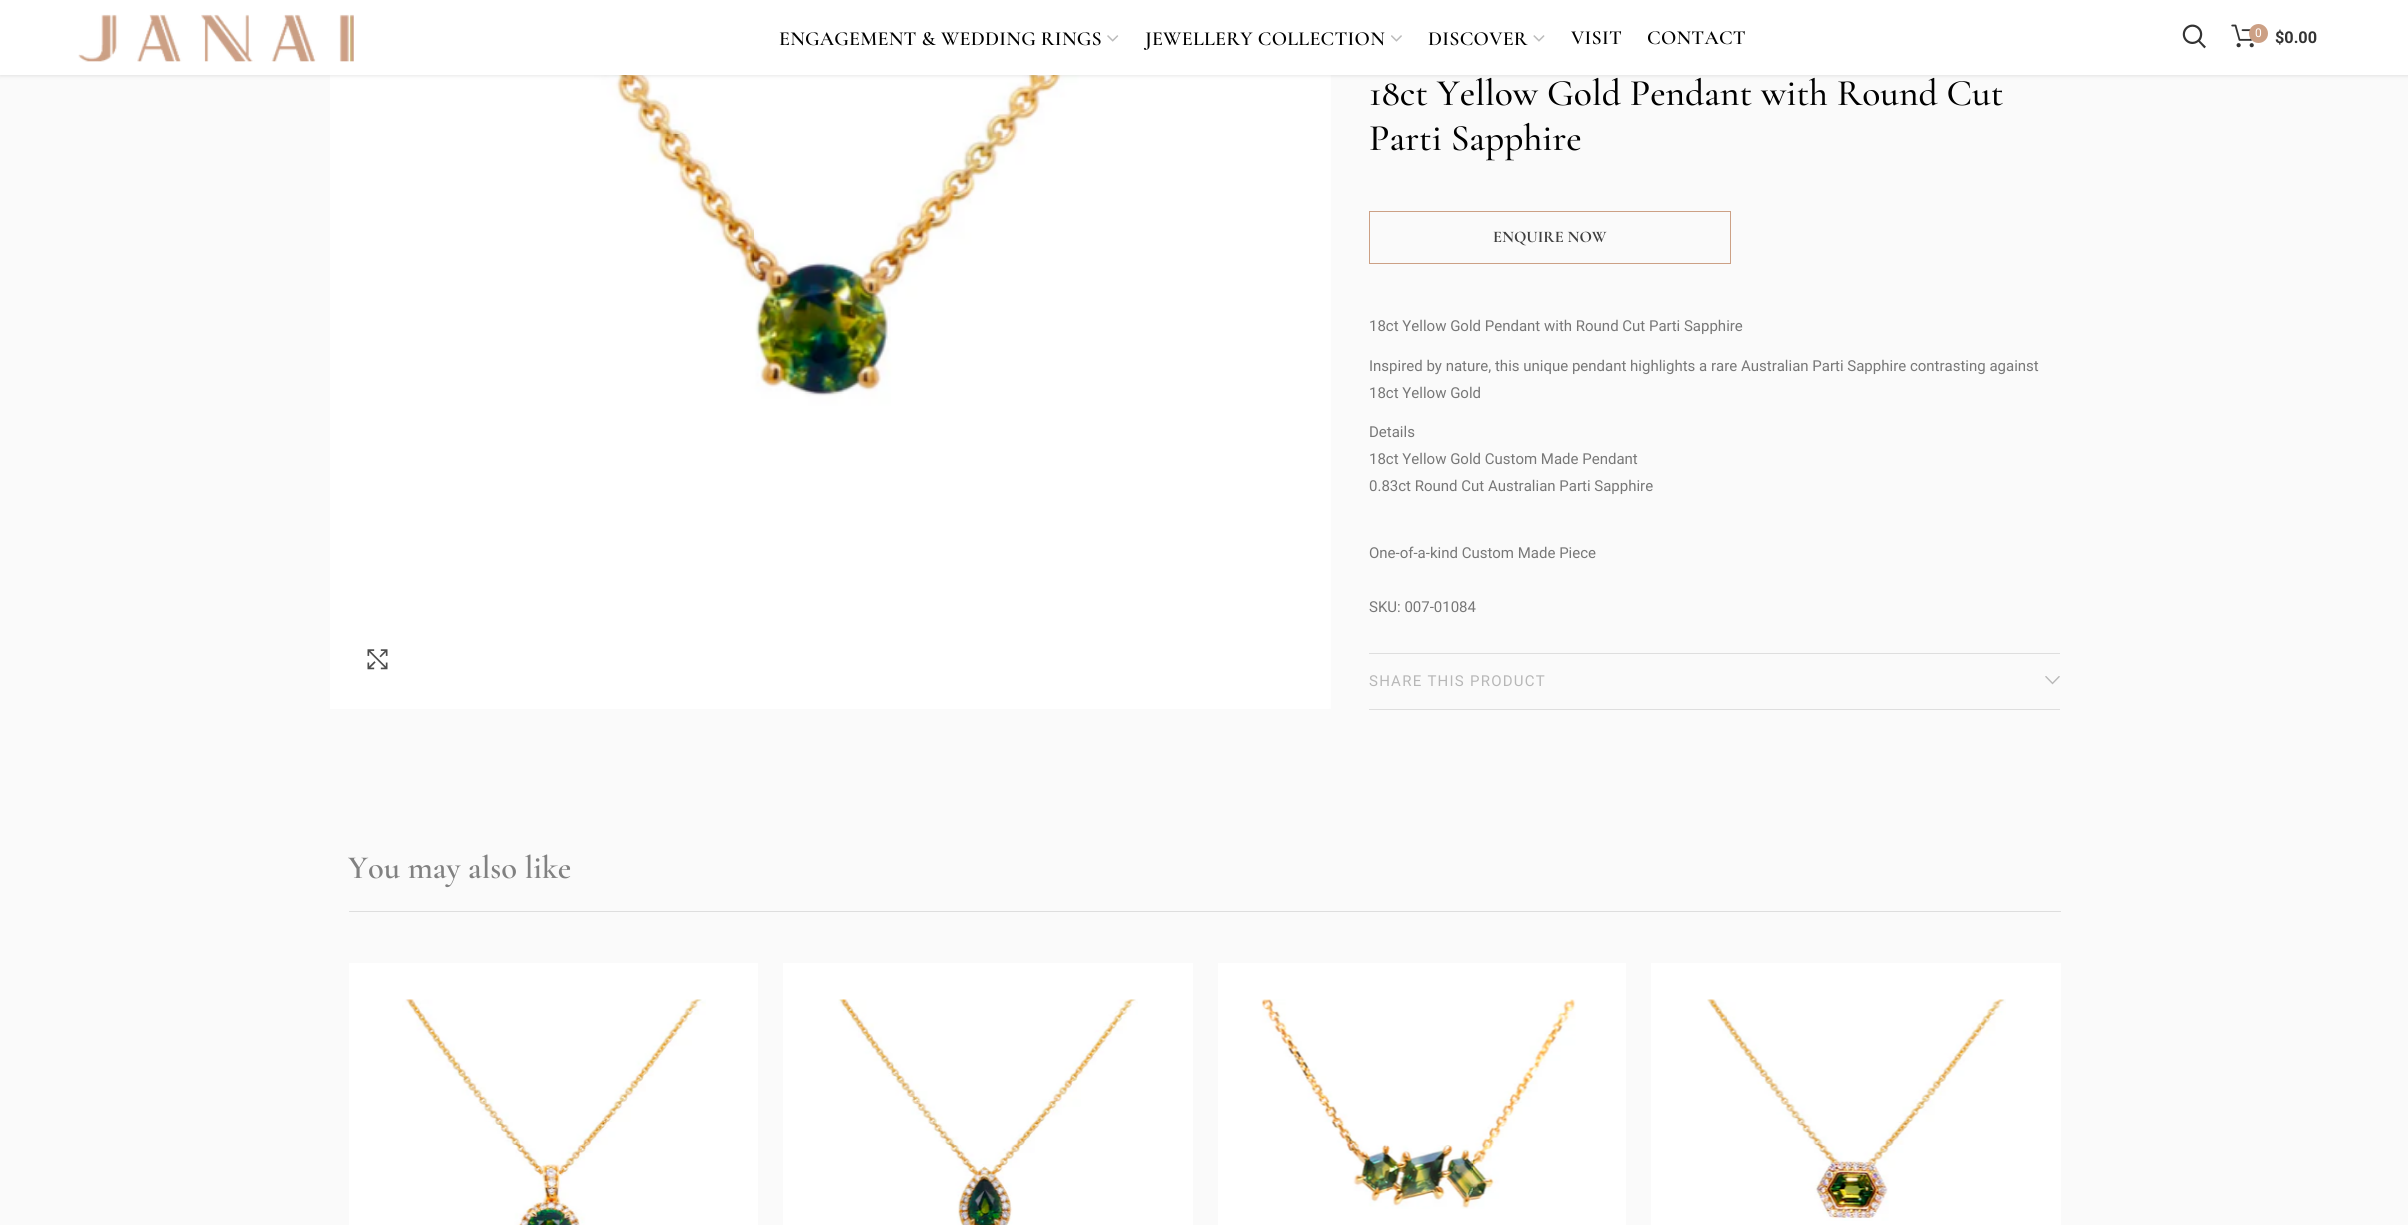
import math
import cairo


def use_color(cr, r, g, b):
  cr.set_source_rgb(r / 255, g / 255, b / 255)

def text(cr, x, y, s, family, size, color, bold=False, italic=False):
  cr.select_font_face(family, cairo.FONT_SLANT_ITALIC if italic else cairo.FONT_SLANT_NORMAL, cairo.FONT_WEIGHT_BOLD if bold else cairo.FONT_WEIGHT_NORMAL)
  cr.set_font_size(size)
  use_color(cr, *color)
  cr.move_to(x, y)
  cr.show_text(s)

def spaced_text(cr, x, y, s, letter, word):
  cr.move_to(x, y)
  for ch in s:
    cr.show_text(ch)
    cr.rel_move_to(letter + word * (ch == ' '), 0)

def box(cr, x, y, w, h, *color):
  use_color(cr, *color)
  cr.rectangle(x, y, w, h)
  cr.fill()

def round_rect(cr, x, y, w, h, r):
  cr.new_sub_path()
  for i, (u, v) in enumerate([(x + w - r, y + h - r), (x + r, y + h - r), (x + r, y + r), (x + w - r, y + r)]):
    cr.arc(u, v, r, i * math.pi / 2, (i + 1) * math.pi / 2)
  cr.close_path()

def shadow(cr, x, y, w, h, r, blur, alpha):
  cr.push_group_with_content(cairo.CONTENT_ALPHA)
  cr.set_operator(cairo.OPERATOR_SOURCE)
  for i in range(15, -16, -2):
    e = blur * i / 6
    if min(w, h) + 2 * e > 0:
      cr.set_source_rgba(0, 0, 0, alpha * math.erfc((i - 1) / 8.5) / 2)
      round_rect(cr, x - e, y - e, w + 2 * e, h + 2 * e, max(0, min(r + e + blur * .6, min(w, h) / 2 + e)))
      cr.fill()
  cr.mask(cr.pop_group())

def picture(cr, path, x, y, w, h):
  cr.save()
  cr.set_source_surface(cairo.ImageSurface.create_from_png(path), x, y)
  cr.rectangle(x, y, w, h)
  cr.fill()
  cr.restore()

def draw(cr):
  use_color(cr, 250, 250, 250)
  cr.paint()
  picture(cr, "img_07.png", 330, 75, 1001, 634)
  use_color(cr, 0, 0, 0)
  shadow(cr, 0, 1, 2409, 75, 0, 2, 0.1)
  box(cr, 0, 0, 2408, 75, 255, 255, 255)
  picture(cr, "img_01.png", 78, 14, 276, 48)
  picture(cr, "img_02.png", 1107, 35, 12, 7)
  picture(cr, "img_03.png", 1391, 35, 11, 7)
  picture(cr, "img_04.png", 1533, 35, 12, 7)
  picture(cr, "img_05.png", 2182, 24, 24, 25)
  picture(cr, "img_06.png", 2231, 24, 23, 24)
  use_color(cr, 204, 160, 133)
  cr.arc(2258.5, 33.5, 9.5, 0, 2 * math.pi)
  cr.fill()
  picture(cr, "img_08.png", 367, 649, 21, 21)
  cr.rectangle(1369.5, 211.5, 361, 52)
  cr.set_line_width(1)
  cr.stroke()
  box(cr, 1369, 653, 691, 1, 222, 222, 222)
  box(cr, 1369, 709, 691, 1, 222, 222, 222)
  picture(cr, "img_09.png", 2045, 676, 15, 9)
  box(cr, 349, 911, 1712, 1, 222, 222, 222)
  box(cr, 349, 963, 409, 262, 255, 255, 255)
  picture(cr, "img_10.png", 402, 999, 304, 226)
  box(cr, 783, 963, 410, 262, 255, 255, 255)
  picture(cr, "img_11.png", 838, 999, 300, 226)
  box(cr, 1218, 963, 408, 262, 255, 255, 255)
  picture(cr, "img_12.png", 1261, 999, 315, 210)
  box(cr, 1651, 963, 410, 262, 255, 255, 255)
  picture(cr, "img_13.png", 1707, 999, 299, 222)
  cr.select_font_face("Cormorant Garamond SemiBold")
  cr.set_font_size(20)
  use_color(cr, 0, 0, 0)
  spaced_text(cr, 779, 45, "ENGAGEMENT & WEDDING RINGS", 0.25, 0)
  spaced_text(cr, 1145, 45, "JEWELLERY COLLECTION", 0.25, 0)
  spaced_text(cr, 1428, 45, "DISCOVER", 0.25, 0)
  spaced_text(cr, 1571, 44, "VISIT", 0.25, 0)
  spaced_text(cr, 1647, 44, "CONTACT", 0.25, 0)
  text(cr, 2255, 37, "0", "Roboto", 12, (255, 255, 255))
  text(cr, 2275, 43, "$0.00", "Roboto", 16.25, (51, 51, 51), bold=True)
  text(cr, 1369, 105, "18ct Yellow Gold Pendant with Round Cut", "Cormorant Garamond Medium", 37.5, (0, 0, 0))
  text(cr, 1369, 150, "Parti Sapphire", "Cormorant Garamond Medium", 37.5, (0, 0, 0))
  text(cr, 1493, 242, "ENQUIRE NOW", "Cormorant Garamond", 16.25, (63, 63, 63), bold=True)
  text(cr, 1369, 331, "18ct Yellow Gold Pendant with Round Cut Parti Sapphire", "Roboto", 15, (119, 119, 119))
  text(cr, 1369, 371, "Inspired by nature, this unique pendant highlights a rare Australian Parti Sapphire contrasting against", "Roboto", 15, (119, 119, 119))
  text(cr, 1369, 398, "18ct Yellow Gold", "Roboto", 15, (119, 119, 119))
  text(cr, 1369, 437, "Details", "Roboto", 15, (119, 119, 119))
  text(cr, 1369, 464, "18ct Yellow Gold Custom Made Pendant", "Roboto", 15, (119, 119, 119))
  text(cr, 1369, 491, "0.83ct Round Cut Australian Parti Sapphire", "Roboto", 15, (119, 119, 119))
  text(cr, 1369, 558, "One-of-a-kind Custom Made Piece", "Roboto", 15, (119, 119, 119))
  text(cr, 1369, 612, "SKU: 007-01084", "Roboto", 15, (119, 119, 119))
  use_color(cr, 183, 183, 183)
  spaced_text(cr, 1369, 686, "SHARE THIS PRODUCT", 1.25, 0)
  text(cr, 348, 878, "You may also like", "Cormorant Garamond SemiBold", 32.5, (129, 129, 129))


surface = cairo.ImageSurface(cairo.FORMAT_RGB24, 2408, 1225)
cr = cairo.Context(surface)
options = cairo.FontOptions()
options.set_hint_metrics(cairo.HINT_METRICS_OFF)
options.set_hint_style(cairo.HINT_STYLE_NONE)
cr.set_font_options(options)
cr.set_miter_limit(4)
draw(cr)
surface.write_to_png("out.png")
